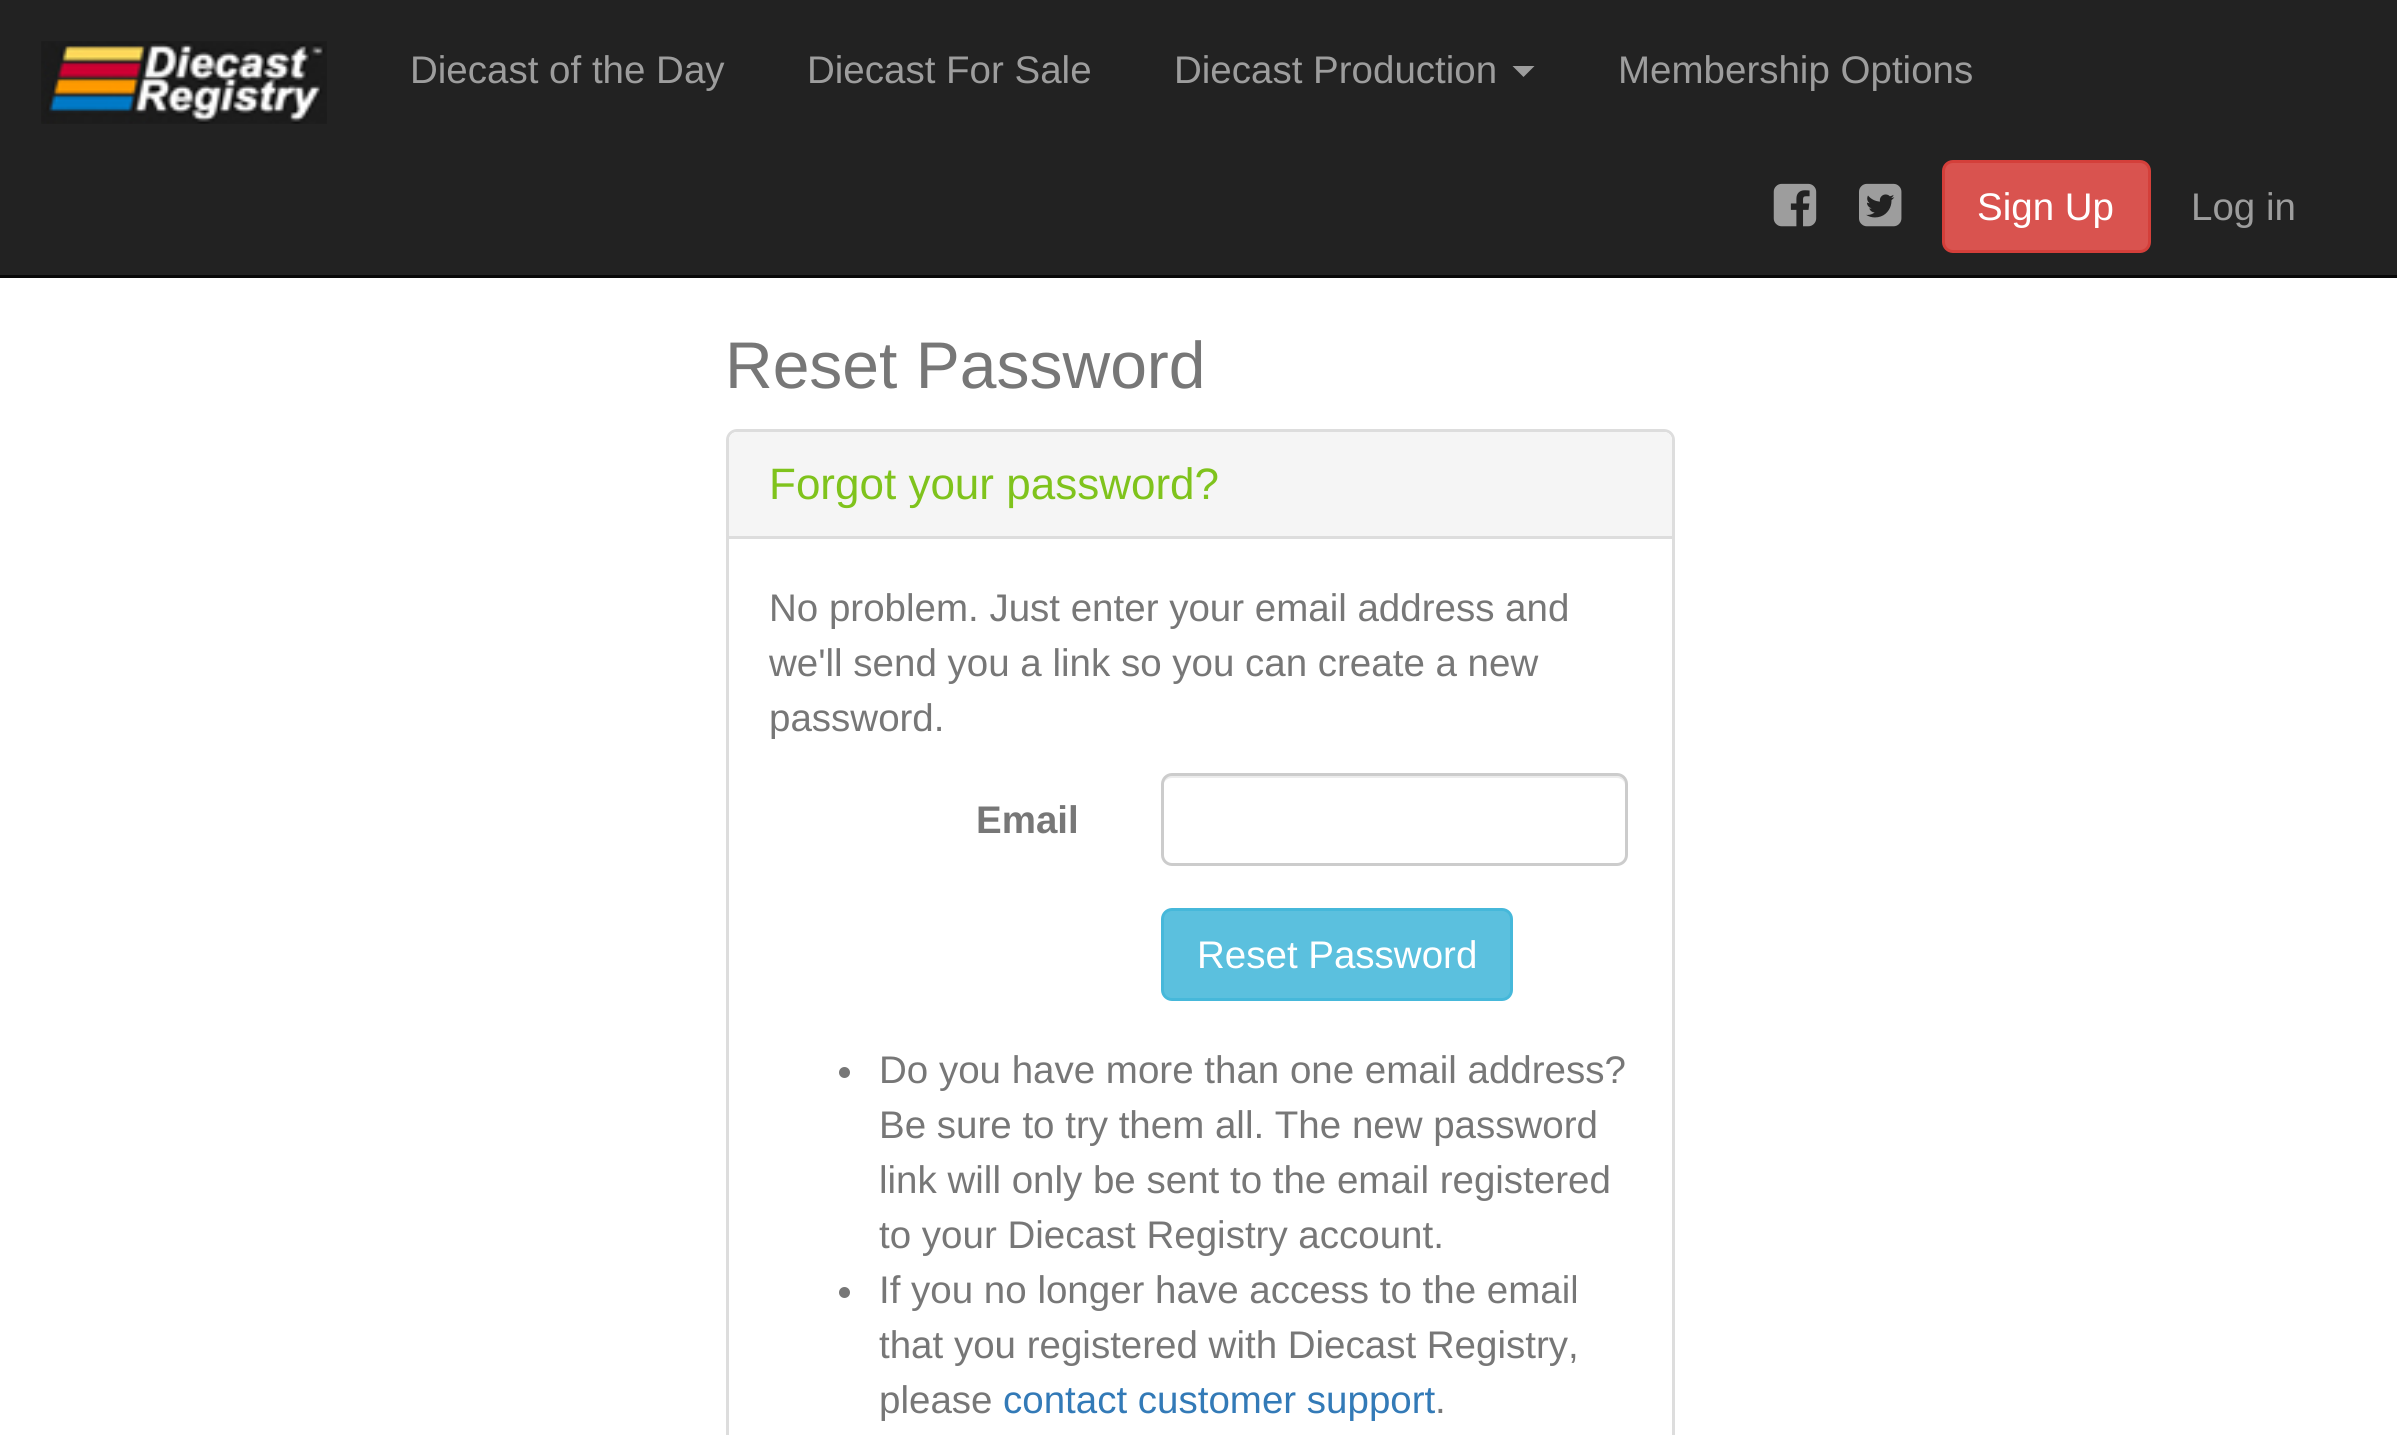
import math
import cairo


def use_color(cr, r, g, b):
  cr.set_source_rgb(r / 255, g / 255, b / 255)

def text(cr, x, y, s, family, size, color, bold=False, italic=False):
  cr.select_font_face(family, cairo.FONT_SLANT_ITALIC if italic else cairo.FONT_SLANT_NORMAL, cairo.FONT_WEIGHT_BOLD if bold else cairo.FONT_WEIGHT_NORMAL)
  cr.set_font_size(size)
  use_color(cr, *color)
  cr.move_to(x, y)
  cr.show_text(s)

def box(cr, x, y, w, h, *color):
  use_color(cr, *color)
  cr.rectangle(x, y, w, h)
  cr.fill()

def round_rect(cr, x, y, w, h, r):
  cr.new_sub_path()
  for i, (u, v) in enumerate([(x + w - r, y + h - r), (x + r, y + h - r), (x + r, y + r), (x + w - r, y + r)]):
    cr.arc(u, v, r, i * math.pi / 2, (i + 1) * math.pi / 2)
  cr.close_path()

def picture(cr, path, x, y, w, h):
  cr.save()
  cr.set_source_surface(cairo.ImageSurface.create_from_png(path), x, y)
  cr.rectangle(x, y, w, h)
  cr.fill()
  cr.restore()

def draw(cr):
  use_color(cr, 255, 255, 255)
  cr.paint()
  box(cr, 0, 0, 2397, 275, 34, 34, 34)
  box(cr, 0, 275, 2397, 3, 8, 8, 8)
  picture(cr, "img_01.png", 41, 41, 286, 83)
  use_color(cr, 157, 157, 157)
  cr.new_path()
  cr.move_to(1512.5, 66)
  cr.line_to(1534.5, 66)
  cr.line_to(1523.5, 77)
  cr.close_path()
  cr.fill()
  picture(cr, "img_02.png", 1773, 183, 44, 44)
  picture(cr, "img_03.png", 1859, 183, 43, 44)
  use_color(cr, 217, 83, 79)
  round_rect(cr, 1943.5, 161.5, 206, 90, 9.5)
  cr.fill_preserve()
  use_color(cr, 212, 63, 58)
  cr.set_line_width(3)
  cr.stroke()
  round_rect(cr, 727.5, 430.5, 946, 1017, 9.5)
  use_color(cr, 221, 221, 221)
  cr.stroke()
  use_color(cr, 245, 245, 245)
  cr.new_path()
  cr.move_to(737, 432)
  cr.line_to(1664, 432)
  cr.curve_to(1668.5, 432, 1672, 435.5, 1672, 440)
  cr.line_to(1672, 539)
  cr.line_to(729, 539)
  cr.line_to(729, 440)
  cr.curve_to(729, 435.5, 732.5, 432, 737, 432)
  cr.close_path()
  cr.fill()
  box(cr, 729, 536, 943, 3, 221, 221, 221)
  use_color(cr, 236, 236, 236)
  cr.new_path()
  cr.move_to(1172, 778)
  cr.line_to(1617, 778)
  cr.curve_to(1622, 778, 1625, 782, 1625, 786)
  cr.curve_to(1625, 781, 1623, 776, 1617, 776)
  cr.line_to(1171, 776)
  cr.curve_to(1165, 776, 1163, 781, 1163, 786)
  cr.curve_to(1163, 782, 1167, 778, 1172, 778)
  cr.close_path()
  cr.fill()
  round_rect(cr, 1162.5, 774.5, 464, 90, 9.5)
  use_color(cr, 204, 204, 204)
  cr.stroke()
  use_color(cr, 91, 192, 222)
  round_rect(cr, 1162.5, 909.5, 349, 90, 9.5)
  cr.fill_preserve()
  use_color(cr, 70, 184, 218)
  cr.stroke()
  use_color(cr, 119, 119, 119)
  cr.arc(844.5, 1072.5, 5.5, 0, 2 * math.pi)
  cr.fill()
  cr.arc(844.5, 1292.5, 5.5, 0, 2 * math.pi)
  cr.fill()
  text(cr, 410, 83, "Diecast of the Day", "Liberation Sans", 38.5, (157, 157, 157))
  text(cr, 807, 83, "Diecast For Sale", "Liberation Sans", 38.5, (157, 157, 157))
  text(cr, 1174, 83, "Diecast Production", "Liberation Sans", 38.5, (157, 157, 157))
  text(cr, 1618, 83, "Membership Options", "Liberation Sans", 38.5, (157, 157, 157))
  text(cr, 1977, 220, "Sign Up", "Liberation Sans", 38.5, (255, 255, 255))
  text(cr, 2191, 220, "Log in", "Liberation Sans", 38.5, (157, 157, 157))
  text(cr, 725, 388, "Reset Password", "Liberation Sans", 66, (119, 119, 119))
  text(cr, 769, 499, "Forgot your password?", "Liberation Sans", 44, (127, 195, 28))
  text(cr, 769, 621, "No problem. Just enter your email address and", "Liberation Sans", 38.5, (119, 119, 119))
  text(cr, 769, 676, "we'll send you a link so you can create a new", "Liberation Sans", 38.5, (119, 119, 119))
  text(cr, 769, 731, "password.", "Liberation Sans", 38.5, (119, 119, 119))
  text(cr, 976, 833, "Email", "Liberation Sans", 38.5, (119, 119, 119), bold=True)
  text(cr, 1197, 968, "Reset Password", "Liberation Sans", 38.5, (255, 255, 255))
  text(cr, 879, 1083, "Do you have more than one email address?", "Liberation Sans", 38.5, (119, 119, 119))
  text(cr, 879, 1138, "Be sure to try them all. The new password", "Liberation Sans", 38.5, (119, 119, 119))
  text(cr, 879, 1193, "link will only be sent to the email registered", "Liberation Sans", 38.5, (119, 119, 119))
  text(cr, 879, 1248, "to your Diecast Registry account.", "Liberation Sans", 38.5, (119, 119, 119))
  text(cr, 879, 1303, "If you no longer have access to the email", "Liberation Sans", 38.5, (119, 119, 119))
  text(cr, 879, 1358, "that you registered with Diecast Registry,", "Liberation Sans", 38.5, (119, 119, 119))
  text(cr, 879, 1413, "please", "Liberation Sans", 38.5, (119, 119, 119))
  text(cr, 1003, 1413, "contact customer support", "Liberation Sans", 38.5, (51, 122, 183))
  text(cr, 1435, 1413, ".", "Liberation Sans", 38.5, (119, 119, 119))


surface = cairo.ImageSurface(cairo.FORMAT_RGB24, 2397, 1435)
cr = cairo.Context(surface)
options = cairo.FontOptions()
options.set_hint_metrics(cairo.HINT_METRICS_OFF)
options.set_hint_style(cairo.HINT_STYLE_NONE)
cr.set_font_options(options)
cr.set_miter_limit(4)
draw(cr)
surface.write_to_png("out.png")
